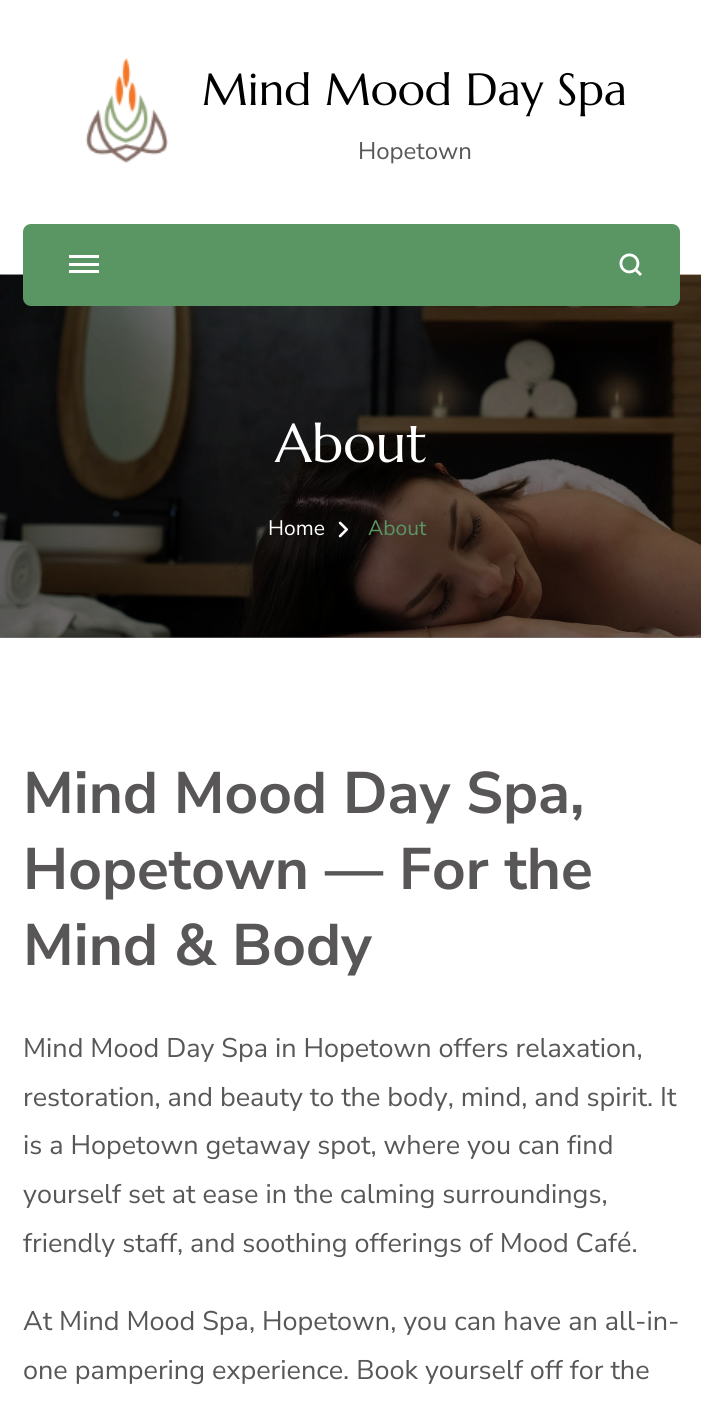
import math
import cairo


def use_color(cr, r, g, b):
  cr.set_source_rgb(r / 255, g / 255, b / 255)

def text(cr, x, y, s, family, size, color, bold=False, italic=False):
  cr.select_font_face(family, cairo.FONT_SLANT_ITALIC if italic else cairo.FONT_SLANT_NORMAL, cairo.FONT_WEIGHT_BOLD if bold else cairo.FONT_WEIGHT_NORMAL)
  cr.set_font_size(size)
  use_color(cr, *color)
  cr.move_to(x, y)
  cr.show_text(s)

def box(cr, x, y, w, h, *color):
  use_color(cr, *color)
  cr.rectangle(x, y, w, h)
  cr.fill()

def round_rect(cr, x, y, w, h, r):
  cr.new_sub_path()
  for i, (u, v) in enumerate([(x + w - r, y + h - r), (x + r, y + h - r), (x + r, y + r), (x + w - r, y + r)]):
    cr.arc(u, v, r, i * math.pi / 2, (i + 1) * math.pi / 2)
  cr.close_path()

def picture(cr, path, x, y, w, h):
  cr.save()
  cr.set_source_surface(cairo.ImageSurface.create_from_png(path), x, y)
  cr.rectangle(x, y, w, h)
  cr.fill()
  cr.restore()

def draw(cr):
  use_color(cr, 255, 255, 255)
  cr.paint()
  box(cr, 0, 637, 701, 1, 128, 128, 128)
  picture(cr, "img_01.png", 85, 58, 84, 106)
  picture(cr, "img_03.png", 0, 274, 701, 364)
  use_color(cr, 90, 150, 99)
  round_rect(cr, 23, 224, 657, 82, 8)
  cr.fill()
  box(cr, 69, 255, 30, 3, 255, 255, 255)
  box(cr, 69, 263, 30, 3, 255, 255, 255)
  box(cr, 69, 270, 30, 3, 255, 255, 255)
  picture(cr, "img_02.png", 619, 253, 23, 23)
  picture(cr, "img_04.png", 338, 521, 10, 17)
  text(cr, 202, 105, "Mind Mood Day Spa", "Marcellus", 45, (0, 0, 0))
  text(cr, 358, 159, "Hopetown", "Nunito Sans", 24, (88, 86, 86))
  text(cr, 275, 462, "About", "Marcellus", 54, (255, 255, 255))
  text(cr, 268, 535, "Home", "Nunito Sans", 21, (255, 255, 255))
  text(cr, 368, 535, "About", "Nunito Sans", 21, (90, 150, 99))
  text(cr, 23, 813, "Mind Mood Day Spa,", "Nunito Sans", 58.5, (88, 86, 86), bold=True)
  text(cr, 23, 889, "Hopetown — For the", "Nunito Sans", 58.5, (88, 86, 86), bold=True)
  text(cr, 23, 965, "Mind & Body", "Nunito Sans", 58.5, (88, 86, 86), bold=True)
  text(cr, 23, 1057, "Mind Mood Day Spa in Hopetown offers relaxation,", "Nunito Sans", 27, (88, 86, 86))
  text(cr, 23, 1106, "restoration, and beauty to the body, mind, and spirit. It", "Nunito Sans", 27, (88, 86, 86))
  text(cr, 23, 1154, "is a Hopetown getaway spot, where you can find", "Nunito Sans", 27, (88, 86, 86))
  text(cr, 23, 1203, "yourself set at ease in the calming surroundings,", "Nunito Sans", 27, (88, 86, 86))
  text(cr, 23, 1252, "friendly staff, and soothing offerings of Mood Café.", "Nunito Sans", 27, (88, 86, 86))
  text(cr, 23, 1330, "At Mind Mood Spa, Hopetown, you can have an all-in-", "Nunito Sans", 27, (88, 86, 86))
  text(cr, 23, 1379, "one pampering experience. Book yourself off for the", "Nunito Sans", 27, (88, 86, 86))


surface = cairo.ImageSurface(cairo.FORMAT_RGB24, 701, 1414)
cr = cairo.Context(surface)
options = cairo.FontOptions()
options.set_hint_metrics(cairo.HINT_METRICS_OFF)
options.set_hint_style(cairo.HINT_STYLE_NONE)
cr.set_font_options(options)
cr.set_miter_limit(4)
draw(cr)
surface.write_to_png("out.png")
